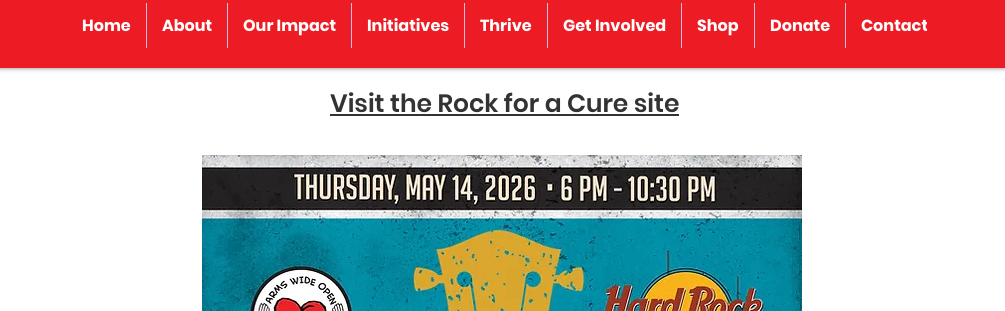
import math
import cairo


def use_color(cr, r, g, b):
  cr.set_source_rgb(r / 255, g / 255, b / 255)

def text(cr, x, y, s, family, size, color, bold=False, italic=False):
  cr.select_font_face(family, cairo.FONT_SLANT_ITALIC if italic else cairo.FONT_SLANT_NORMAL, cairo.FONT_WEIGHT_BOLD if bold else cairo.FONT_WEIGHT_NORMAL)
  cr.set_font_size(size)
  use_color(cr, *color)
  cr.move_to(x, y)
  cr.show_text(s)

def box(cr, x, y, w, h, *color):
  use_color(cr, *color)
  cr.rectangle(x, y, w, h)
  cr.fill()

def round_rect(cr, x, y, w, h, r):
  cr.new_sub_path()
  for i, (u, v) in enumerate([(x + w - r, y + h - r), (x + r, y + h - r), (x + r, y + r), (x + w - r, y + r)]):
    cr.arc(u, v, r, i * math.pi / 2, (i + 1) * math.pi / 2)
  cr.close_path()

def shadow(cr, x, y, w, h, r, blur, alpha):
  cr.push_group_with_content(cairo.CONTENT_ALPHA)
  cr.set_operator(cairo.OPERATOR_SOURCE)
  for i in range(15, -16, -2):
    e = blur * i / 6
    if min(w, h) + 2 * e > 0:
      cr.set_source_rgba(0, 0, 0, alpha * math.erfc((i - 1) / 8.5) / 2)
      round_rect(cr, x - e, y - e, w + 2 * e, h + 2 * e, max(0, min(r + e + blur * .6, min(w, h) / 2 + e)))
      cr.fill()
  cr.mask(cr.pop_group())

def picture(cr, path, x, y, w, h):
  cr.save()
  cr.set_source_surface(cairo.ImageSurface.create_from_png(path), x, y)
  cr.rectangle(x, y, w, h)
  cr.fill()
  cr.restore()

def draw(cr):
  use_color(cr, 255, 255, 255)
  cr.paint()
  use_color(cr, 0, 0, 0)
  shadow(cr, 0, 0, 1005, 68, 0, 2.5, 0.5)
  box(cr, 0, 0, 1005, 68, 237, 28, 36)
  box(cr, 146, 3, 1, 45, 216, 189, 226)
  box(cr, 227, 3, 1, 45, 216, 189, 226)
  box(cr, 351, 3, 1, 45, 216, 189, 226)
  box(cr, 464, 3, 1, 45, 216, 189, 226)
  box(cr, 547, 3, 1, 45, 216, 189, 226)
  box(cr, 681, 3, 1, 45, 216, 189, 226)
  box(cr, 754, 3, 1, 45, 216, 189, 226)
  box(cr, 845, 3, 1, 45, 216, 189, 226)
  box(cr, 330, 114, 349, 2, 51, 51, 51)
  picture(cr, "img_01.png", 202, 155, 600, 156)
  text(cr, 82, 31, "Home", "Poppins", 16, (255, 255, 255), bold=True)
  text(cr, 162, 31, "About", "Poppins", 16, (255, 255, 255), bold=True)
  text(cr, 243, 31, "Our Impact", "Poppins", 16, (255, 255, 255), bold=True)
  text(cr, 367, 31, "Initiatives", "Poppins", 16, (255, 255, 255), bold=True)
  text(cr, 480, 31, "Thrive", "Poppins", 16, (255, 255, 255), bold=True)
  text(cr, 563, 31, "Get Involved", "Poppins", 16, (255, 255, 255), bold=True)
  text(cr, 697, 31, "Shop", "Poppins", 16, (255, 255, 255), bold=True)
  text(cr, 770, 31, "Donate", "Poppins", 16, (255, 255, 255), bold=True)
  text(cr, 861, 31, "Contact", "Poppins", 16, (255, 255, 255), bold=True)
  text(cr, 330, 112, "Visit the Rock for a Cure site", "Poppins SemiBold", 25, (51, 51, 51))


surface = cairo.ImageSurface(cairo.FORMAT_RGB24, 1005, 311)
cr = cairo.Context(surface)
options = cairo.FontOptions()
options.set_hint_metrics(cairo.HINT_METRICS_OFF)
options.set_hint_style(cairo.HINT_STYLE_NONE)
cr.set_font_options(options)
cr.set_miter_limit(4)
draw(cr)
surface.write_to_png("out.png")
